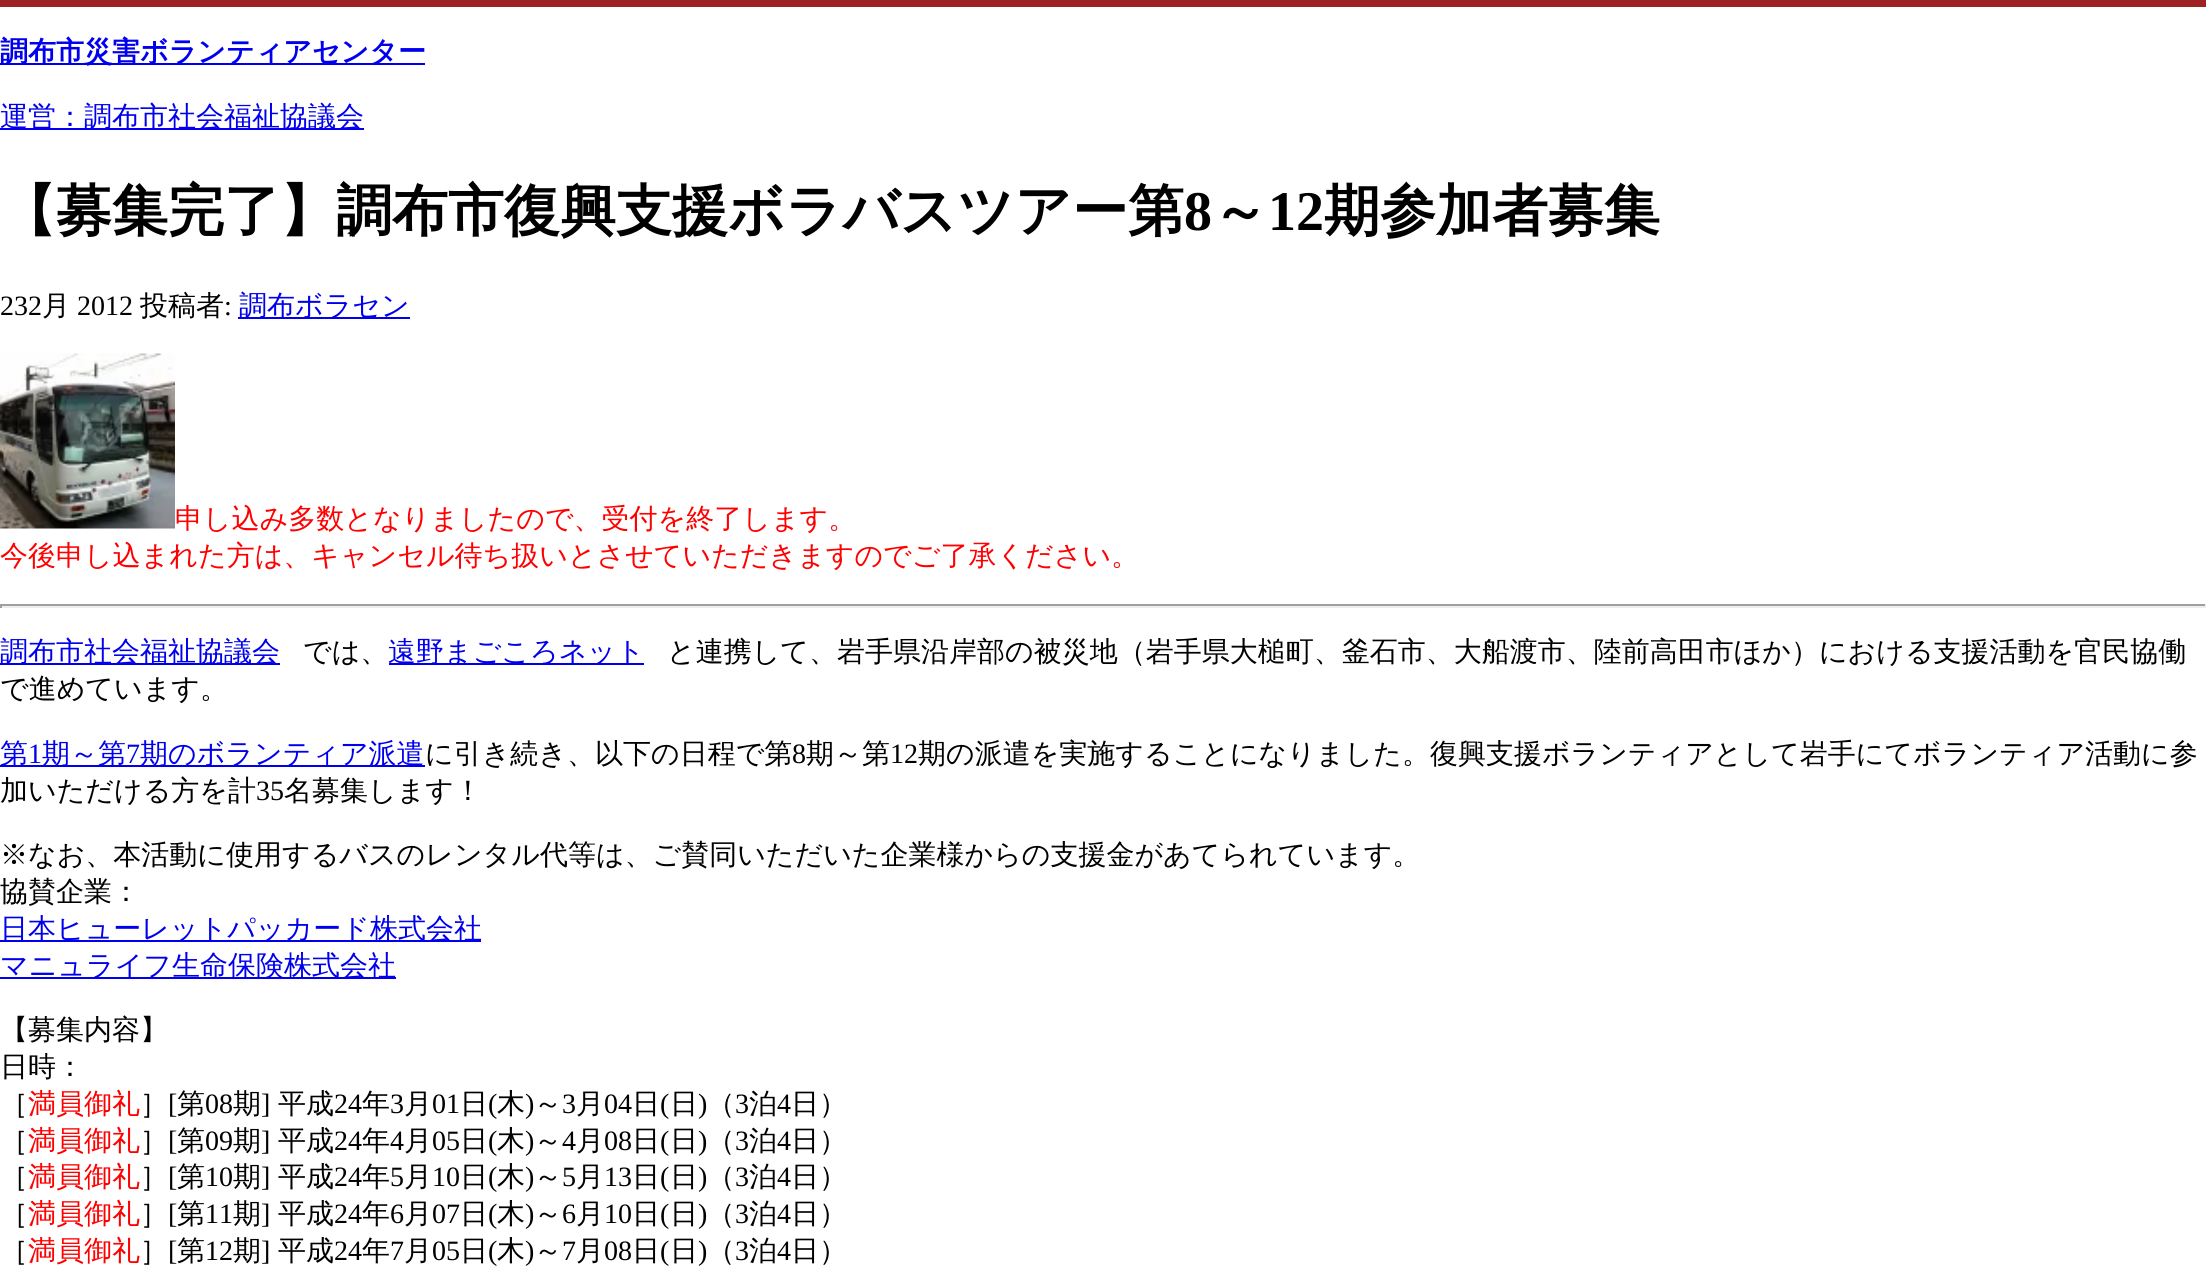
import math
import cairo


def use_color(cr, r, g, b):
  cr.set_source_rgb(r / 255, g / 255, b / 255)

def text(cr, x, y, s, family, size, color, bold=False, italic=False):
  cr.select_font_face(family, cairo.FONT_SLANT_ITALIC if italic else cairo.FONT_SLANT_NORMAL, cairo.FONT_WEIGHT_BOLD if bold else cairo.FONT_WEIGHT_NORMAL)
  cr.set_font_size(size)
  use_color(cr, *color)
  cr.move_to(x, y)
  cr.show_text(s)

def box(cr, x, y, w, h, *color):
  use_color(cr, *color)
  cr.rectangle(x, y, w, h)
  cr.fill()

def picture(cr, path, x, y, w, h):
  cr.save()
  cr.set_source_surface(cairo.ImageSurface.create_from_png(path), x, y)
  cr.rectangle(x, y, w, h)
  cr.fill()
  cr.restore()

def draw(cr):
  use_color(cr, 255, 255, 255)
  cr.paint()
  box(cr, 0, 0, 2206, 7, 158, 34, 34)
  box(cr, 0, 63, 425, 2, 0, 0, 238)
  box(cr, 0, 128, 364, 2, 0, 0, 238)
  box(cr, 238, 317, 172, 2, 0, 0, 238)
  picture(cr, "img_01.png", 0, 353, 175, 176)
  box(cr, 0, 604, 2206, 2, 159, 159, 159)
  box(cr, 2205, 604, 1, 4, 238, 238, 238)
  box(cr, 0, 606, 2206, 2, 238, 238, 238)
  box(cr, 0, 604, 2, 4, 159, 159, 159)
  box(cr, 0, 663, 280, 2, 0, 0, 238)
  box(cr, 389, 663, 255, 2, 0, 0, 238)
  box(cr, 0, 765, 425, 2, 0, 0, 238)
  box(cr, 0, 940, 481, 2, 0, 0, 238)
  box(cr, 0, 977, 396, 2, 0, 0, 238)
  text(cr, 0, 61, "調布市災害ボランティアセンター", "WenQuanYi Zen Hei", 28, (0, 0, 238), bold=True)
  text(cr, 0, 126, "運営：調布市社会福祉協議会", "WenQuanYi Zen Hei Medium", 28, (0, 0, 238))
  text(cr, 0, 230, "【募集完了】調布市復興支援ボラバスツアー第", "WenQuanYi Zen Hei", 56, (0, 0, 0), bold=True)
  text(cr, 1184, 230, "8", "Liberation Serif", 56, (0, 0, 0), bold=True)
  text(cr, 1212, 230, "～", "WenQuanYi Zen Hei", 56, (0, 0, 0), bold=True)
  text(cr, 1268, 230, "12", "Liberation Serif", 56, (0, 0, 0), bold=True)
  text(cr, 1324, 230, "期参加者募集", "WenQuanYi Zen Hei", 56, (0, 0, 0), bold=True)
  text(cr, 0, 315, "232", "Liberation Serif", 28, (0, 0, 0))
  text(cr, 42, 315, "月", "WenQuanYi Zen Hei Medium", 28, (0, 0, 0))
  text(cr, 77, 315, "2012", "Liberation Serif", 28, (0, 0, 0))
  text(cr, 140, 315, "投稿者", "WenQuanYi Zen Hei Medium", 28, (0, 0, 0))
  text(cr, 224, 315, ":", "Liberation Serif", 28, (0, 0, 0))
  text(cr, 239, 315, "調布ボラセン", "WenQuanYi Zen Hei Medium", 28, (0, 0, 238))
  text(cr, 175, 528, "申し込み多数となりましたので、受付を終了します。", "WenQuanYi Zen Hei Medium", 28, (255, 0, 0))
  text(cr, 0, 565, "今後申し込まれた方は、キャンセル待ち扱いとさせていただきますのでご了承ください。", "WenQuanYi Zen Hei Medium", 28, (255, 0, 0))
  text(cr, 0, 661, "調布市社会福祉協議会", "WenQuanYi Zen Hei Medium", 28, (0, 0, 238))
  text(cr, 303, 661, "では、", "WenQuanYi Zen Hei Medium", 28, (0, 0, 0))
  text(cr, 388, 661, "遠野まごころネット", "WenQuanYi Zen Hei Medium", 28, (0, 0, 238))
  text(cr, 667, 661, "と連携して、岩手県沿岸部の被災地（岩手県大槌町、釜石市、大船渡市、陸前高田市ほか）における支援活動を官民協働", "WenQuanYi Zen Hei Medium", 28, (0, 0, 0))
  text(cr, 0, 698, "で進めています。", "WenQuanYi Zen Hei Medium", 28, (0, 0, 0))
  text(cr, 0, 763, "第", "WenQuanYi Zen Hei Medium", 28, (0, 0, 238))
  text(cr, 28, 763, "1", "Liberation Serif", 28, (0, 0, 238))
  text(cr, 42, 763, "期～第", "WenQuanYi Zen Hei Medium", 28, (0, 0, 238))
  text(cr, 126, 763, "7", "Liberation Serif", 28, (0, 0, 238))
  text(cr, 140, 763, "期のボランティア派遣", "WenQuanYi Zen Hei Medium", 28, (0, 0, 238))
  text(cr, 425, 763, "に引き続き、以下の日程で第", "WenQuanYi Zen Hei Medium", 28, (0, 0, 0))
  text(cr, 792, 763, "8", "Liberation Serif", 28, (0, 0, 0))
  text(cr, 806, 763, "期～第", "WenQuanYi Zen Hei Medium", 28, (0, 0, 0))
  text(cr, 890, 763, "12", "Liberation Serif", 28, (0, 0, 0))
  text(cr, 918, 763, "期の派遣を実施することになりました。復興支援ボランティアとして岩手にてボランティア活動に参", "WenQuanYi Zen Hei Medium", 28, (0, 0, 0))
  text(cr, 0, 800, "加いただける方を計", "WenQuanYi Zen Hei Medium", 28, (0, 0, 0))
  text(cr, 256, 800, "35", "Liberation Serif", 28, (0, 0, 0))
  text(cr, 284, 800, "名募集します！", "WenQuanYi Zen Hei Medium", 28, (0, 0, 0))
  text(cr, 0, 864, "※なお、本活動に使用するバスのレンタル代等は、ご賛同いただいた企業様からの支援金があてられています。", "WenQuanYi Zen Hei Medium", 28, (0, 0, 0))
  text(cr, 0, 901, "協賛企業：", "WenQuanYi Zen Hei Medium", 28, (0, 0, 0))
  text(cr, 0, 938, "日本ヒューレットパッカード株式会社", "WenQuanYi Zen Hei Medium", 28, (0, 0, 238))
  text(cr, 0, 975, "マニュライフ生命保険株式会社", "WenQuanYi Zen Hei Medium", 28, (0, 0, 238))
  text(cr, 0, 1039, "【募集内容】", "WenQuanYi Zen Hei Medium", 28, (0, 0, 0))
  text(cr, 0, 1076, "日時：", "WenQuanYi Zen Hei Medium", 28, (0, 0, 0))
  text(cr, 0, 1113, "［", "WenQuanYi Zen Hei Medium", 28, (0, 0, 0))
  text(cr, 28, 1113, "満員御礼", "WenQuanYi Zen Hei Medium", 28, (255, 0, 0))
  text(cr, 140, 1113, "］", "WenQuanYi Zen Hei Medium", 28, (0, 0, 0))
  text(cr, 168, 1113, "[", "Liberation Serif", 28, (0, 0, 0))
  text(cr, 177, 1113, "第", "WenQuanYi Zen Hei Medium", 28, (0, 0, 0))
  text(cr, 205, 1113, "08", "Liberation Serif", 28, (0, 0, 0))
  text(cr, 233, 1113, "期", "WenQuanYi Zen Hei Medium", 28, (0, 0, 0))
  text(cr, 261, 1113, "]", "Liberation Serif", 28, (0, 0, 0))
  text(cr, 278, 1113, "平成", "WenQuanYi Zen Hei Medium", 28, (0, 0, 0))
  text(cr, 334, 1113, "24", "Liberation Serif", 28, (0, 0, 0))
  text(cr, 362, 1113, "年", "WenQuanYi Zen Hei Medium", 28, (0, 0, 0))
  text(cr, 390, 1113, "3", "Liberation Serif", 28, (0, 0, 0))
  text(cr, 404, 1113, "月", "WenQuanYi Zen Hei Medium", 28, (0, 0, 0))
  text(cr, 432, 1113, "01", "Liberation Serif", 28, (0, 0, 0))
  text(cr, 460, 1113, "日", "WenQuanYi Zen Hei Medium", 28, (0, 0, 0))
  text(cr, 488, 1113, "(", "Liberation Serif", 28, (0, 0, 0))
  text(cr, 497, 1113, "木", "WenQuanYi Zen Hei Medium", 28, (0, 0, 0))
  text(cr, 525, 1113, ")", "Liberation Serif", 28, (0, 0, 0))
  text(cr, 534, 1113, "～", "WenQuanYi Zen Hei Medium", 28, (0, 0, 0))
  text(cr, 562, 1113, "3", "Liberation Serif", 28, (0, 0, 0))
  text(cr, 576, 1113, "月", "WenQuanYi Zen Hei Medium", 28, (0, 0, 0))
  text(cr, 604, 1113, "04", "Liberation Serif", 28, (0, 0, 0))
  text(cr, 632, 1113, "日", "WenQuanYi Zen Hei Medium", 28, (0, 0, 0))
  text(cr, 660, 1113, "(", "Liberation Serif", 28, (0, 0, 0))
  text(cr, 670, 1113, "日", "WenQuanYi Zen Hei Medium", 28, (0, 0, 0))
  text(cr, 698, 1113, ")", "Liberation Serif", 28, (0, 0, 0))
  text(cr, 707, 1113, "（", "WenQuanYi Zen Hei Medium", 28, (0, 0, 0))
  text(cr, 735, 1113, "3", "Liberation Serif", 28, (0, 0, 0))
  text(cr, 749, 1113, "泊", "WenQuanYi Zen Hei Medium", 28, (0, 0, 0))
  text(cr, 777, 1113, "4", "Liberation Serif", 28, (0, 0, 0))
  text(cr, 791, 1113, "日）", "WenQuanYi Zen Hei Medium", 28, (0, 0, 0))
  text(cr, 0, 1150, "［", "WenQuanYi Zen Hei Medium", 28, (0, 0, 0))
  text(cr, 28, 1150, "満員御礼", "WenQuanYi Zen Hei Medium", 28, (255, 0, 0))
  text(cr, 140, 1150, "］", "WenQuanYi Zen Hei Medium", 28, (0, 0, 0))
  text(cr, 168, 1150, "[", "Liberation Serif", 28, (0, 0, 0))
  text(cr, 177, 1150, "第", "WenQuanYi Zen Hei Medium", 28, (0, 0, 0))
  text(cr, 205, 1150, "09", "Liberation Serif", 28, (0, 0, 0))
  text(cr, 233, 1150, "期", "WenQuanYi Zen Hei Medium", 28, (0, 0, 0))
  text(cr, 261, 1150, "]", "Liberation Serif", 28, (0, 0, 0))
  text(cr, 278, 1150, "平成", "WenQuanYi Zen Hei Medium", 28, (0, 0, 0))
  text(cr, 334, 1150, "24", "Liberation Serif", 28, (0, 0, 0))
  text(cr, 362, 1150, "年", "WenQuanYi Zen Hei Medium", 28, (0, 0, 0))
  text(cr, 390, 1150, "4", "Liberation Serif", 28, (0, 0, 0))
  text(cr, 404, 1150, "月", "WenQuanYi Zen Hei Medium", 28, (0, 0, 0))
  text(cr, 432, 1150, "05", "Liberation Serif", 28, (0, 0, 0))
  text(cr, 460, 1150, "日", "WenQuanYi Zen Hei Medium", 28, (0, 0, 0))
  text(cr, 488, 1150, "(", "Liberation Serif", 28, (0, 0, 0))
  text(cr, 497, 1150, "木", "WenQuanYi Zen Hei Medium", 28, (0, 0, 0))
  text(cr, 525, 1150, ")", "Liberation Serif", 28, (0, 0, 0))
  text(cr, 534, 1150, "～", "WenQuanYi Zen Hei Medium", 28, (0, 0, 0))
  text(cr, 562, 1150, "4", "Liberation Serif", 28, (0, 0, 0))
  text(cr, 576, 1150, "月", "WenQuanYi Zen Hei Medium", 28, (0, 0, 0))
  text(cr, 604, 1150, "08", "Liberation Serif", 28, (0, 0, 0))
  text(cr, 632, 1150, "日", "WenQuanYi Zen Hei Medium", 28, (0, 0, 0))
  text(cr, 660, 1150, "(", "Liberation Serif", 28, (0, 0, 0))
  text(cr, 670, 1150, "日", "WenQuanYi Zen Hei Medium", 28, (0, 0, 0))
  text(cr, 698, 1150, ")", "Liberation Serif", 28, (0, 0, 0))
  text(cr, 707, 1150, "（", "WenQuanYi Zen Hei Medium", 28, (0, 0, 0))
  text(cr, 735, 1150, "3", "Liberation Serif", 28, (0, 0, 0))
  text(cr, 749, 1150, "泊", "WenQuanYi Zen Hei Medium", 28, (0, 0, 0))
  text(cr, 777, 1150, "4", "Liberation Serif", 28, (0, 0, 0))
  text(cr, 791, 1150, "日）", "WenQuanYi Zen Hei Medium", 28, (0, 0, 0))
  text(cr, 0, 1186, "［", "WenQuanYi Zen Hei Medium", 28, (0, 0, 0))
  text(cr, 28, 1186, "満員御礼", "WenQuanYi Zen Hei Medium", 28, (255, 0, 0))
  text(cr, 140, 1186, "］", "WenQuanYi Zen Hei Medium", 28, (0, 0, 0))
  text(cr, 168, 1186, "[", "Liberation Serif", 28, (0, 0, 0))
  text(cr, 177, 1186, "第", "WenQuanYi Zen Hei Medium", 28, (0, 0, 0))
  text(cr, 205, 1186, "10", "Liberation Serif", 28, (0, 0, 0))
  text(cr, 233, 1186, "期", "WenQuanYi Zen Hei Medium", 28, (0, 0, 0))
  text(cr, 261, 1186, "]", "Liberation Serif", 28, (0, 0, 0))
  text(cr, 278, 1186, "平成", "WenQuanYi Zen Hei Medium", 28, (0, 0, 0))
  text(cr, 334, 1186, "24", "Liberation Serif", 28, (0, 0, 0))
  text(cr, 362, 1186, "年", "WenQuanYi Zen Hei Medium", 28, (0, 0, 0))
  text(cr, 390, 1186, "5", "Liberation Serif", 28, (0, 0, 0))
  text(cr, 404, 1186, "月", "WenQuanYi Zen Hei Medium", 28, (0, 0, 0))
  text(cr, 432, 1186, "10", "Liberation Serif", 28, (0, 0, 0))
  text(cr, 460, 1186, "日", "WenQuanYi Zen Hei Medium", 28, (0, 0, 0))
  text(cr, 488, 1186, "(", "Liberation Serif", 28, (0, 0, 0))
  text(cr, 497, 1186, "木", "WenQuanYi Zen Hei Medium", 28, (0, 0, 0))
  text(cr, 525, 1186, ")", "Liberation Serif", 28, (0, 0, 0))
  text(cr, 534, 1186, "～", "WenQuanYi Zen Hei Medium", 28, (0, 0, 0))
  text(cr, 562, 1186, "5", "Liberation Serif", 28, (0, 0, 0))
  text(cr, 576, 1186, "月", "WenQuanYi Zen Hei Medium", 28, (0, 0, 0))
  text(cr, 604, 1186, "13", "Liberation Serif", 28, (0, 0, 0))
  text(cr, 632, 1186, "日", "WenQuanYi Zen Hei Medium", 28, (0, 0, 0))
  text(cr, 660, 1186, "(", "Liberation Serif", 28, (0, 0, 0))
  text(cr, 670, 1186, "日", "WenQuanYi Zen Hei Medium", 28, (0, 0, 0))
  text(cr, 698, 1186, ")", "Liberation Serif", 28, (0, 0, 0))
  text(cr, 707, 1186, "（", "WenQuanYi Zen Hei Medium", 28, (0, 0, 0))
  text(cr, 735, 1186, "3", "Liberation Serif", 28, (0, 0, 0))
  text(cr, 749, 1186, "泊", "WenQuanYi Zen Hei Medium", 28, (0, 0, 0))
  text(cr, 777, 1186, "4", "Liberation Serif", 28, (0, 0, 0))
  text(cr, 791, 1186, "日）", "WenQuanYi Zen Hei Medium", 28, (0, 0, 0))
  text(cr, 0, 1223, "［", "WenQuanYi Zen Hei Medium", 28, (0, 0, 0))
  text(cr, 28, 1223, "満員御礼", "WenQuanYi Zen Hei Medium", 28, (255, 0, 0))
  text(cr, 140, 1223, "］", "WenQuanYi Zen Hei Medium", 28, (0, 0, 0))
  text(cr, 168, 1223, "[", "Liberation Serif", 28, (0, 0, 0))
  text(cr, 177, 1223, "第", "WenQuanYi Zen Hei Medium", 28, (0, 0, 0))
  text(cr, 205, 1223, "11", "Liberation Serif", 28, (0, 0, 0))
  text(cr, 233, 1223, "期", "WenQuanYi Zen Hei Medium", 28, (0, 0, 0))
  text(cr, 261, 1223, "]", "Liberation Serif", 28, (0, 0, 0))
  text(cr, 278, 1223, "平成", "WenQuanYi Zen Hei Medium", 28, (0, 0, 0))
  text(cr, 334, 1223, "24", "Liberation Serif", 28, (0, 0, 0))
  text(cr, 362, 1223, "年", "WenQuanYi Zen Hei Medium", 28, (0, 0, 0))
  text(cr, 390, 1223, "6", "Liberation Serif", 28, (0, 0, 0))
  text(cr, 404, 1223, "月", "WenQuanYi Zen Hei Medium", 28, (0, 0, 0))
  text(cr, 432, 1223, "07", "Liberation Serif", 28, (0, 0, 0))
  text(cr, 460, 1223, "日", "WenQuanYi Zen Hei Medium", 28, (0, 0, 0))
  text(cr, 488, 1223, "(", "Liberation Serif", 28, (0, 0, 0))
  text(cr, 497, 1223, "木", "WenQuanYi Zen Hei Medium", 28, (0, 0, 0))
  text(cr, 525, 1223, ")", "Liberation Serif", 28, (0, 0, 0))
  text(cr, 534, 1223, "～", "WenQuanYi Zen Hei Medium", 28, (0, 0, 0))
  text(cr, 562, 1223, "6", "Liberation Serif", 28, (0, 0, 0))
  text(cr, 576, 1223, "月", "WenQuanYi Zen Hei Medium", 28, (0, 0, 0))
  text(cr, 604, 1223, "10", "Liberation Serif", 28, (0, 0, 0))
  text(cr, 632, 1223, "日", "WenQuanYi Zen Hei Medium", 28, (0, 0, 0))
  text(cr, 660, 1223, "(", "Liberation Serif", 28, (0, 0, 0))
  text(cr, 670, 1223, "日", "WenQuanYi Zen Hei Medium", 28, (0, 0, 0))
  text(cr, 698, 1223, ")", "Liberation Serif", 28, (0, 0, 0))
  text(cr, 707, 1223, "（", "WenQuanYi Zen Hei Medium", 28, (0, 0, 0))
  text(cr, 735, 1223, "3", "Liberation Serif", 28, (0, 0, 0))
  text(cr, 749, 1223, "泊", "WenQuanYi Zen Hei Medium", 28, (0, 0, 0))
  text(cr, 777, 1223, "4", "Liberation Serif", 28, (0, 0, 0))
  text(cr, 791, 1223, "日）", "WenQuanYi Zen Hei Medium", 28, (0, 0, 0))
  text(cr, 0, 1260, "［", "WenQuanYi Zen Hei Medium", 28, (0, 0, 0))
  text(cr, 28, 1260, "満員御礼", "WenQuanYi Zen Hei Medium", 28, (255, 0, 0))
  text(cr, 140, 1260, "］", "WenQuanYi Zen Hei Medium", 28, (0, 0, 0))
  text(cr, 168, 1260, "[", "Liberation Serif", 28, (0, 0, 0))
  text(cr, 177, 1260, "第", "WenQuanYi Zen Hei Medium", 28, (0, 0, 0))
  text(cr, 205, 1260, "12", "Liberation Serif", 28, (0, 0, 0))
  text(cr, 233, 1260, "期", "WenQuanYi Zen Hei Medium", 28, (0, 0, 0))
  text(cr, 261, 1260, "]", "Liberation Serif", 28, (0, 0, 0))
  text(cr, 278, 1260, "平成", "WenQuanYi Zen Hei Medium", 28, (0, 0, 0))
  text(cr, 334, 1260, "24", "Liberation Serif", 28, (0, 0, 0))
  text(cr, 362, 1260, "年", "WenQuanYi Zen Hei Medium", 28, (0, 0, 0))
  text(cr, 390, 1260, "7", "Liberation Serif", 28, (0, 0, 0))
  text(cr, 404, 1260, "月", "WenQuanYi Zen Hei Medium", 28, (0, 0, 0))
  text(cr, 432, 1260, "05", "Liberation Serif", 28, (0, 0, 0))
  text(cr, 460, 1260, "日", "WenQuanYi Zen Hei Medium", 28, (0, 0, 0))
  text(cr, 488, 1260, "(", "Liberation Serif", 28, (0, 0, 0))
  text(cr, 497, 1260, "木", "WenQuanYi Zen Hei Medium", 28, (0, 0, 0))
  text(cr, 525, 1260, ")", "Liberation Serif", 28, (0, 0, 0))
  text(cr, 534, 1260, "～", "WenQuanYi Zen Hei Medium", 28, (0, 0, 0))
  text(cr, 562, 1260, "7", "Liberation Serif", 28, (0, 0, 0))
  text(cr, 576, 1260, "月", "WenQuanYi Zen Hei Medium", 28, (0, 0, 0))
  text(cr, 604, 1260, "08", "Liberation Serif", 28, (0, 0, 0))
  text(cr, 632, 1260, "日", "WenQuanYi Zen Hei Medium", 28, (0, 0, 0))
  text(cr, 660, 1260, "(", "Liberation Serif", 28, (0, 0, 0))
  text(cr, 670, 1260, "日", "WenQuanYi Zen Hei Medium", 28, (0, 0, 0))
  text(cr, 698, 1260, ")", "Liberation Serif", 28, (0, 0, 0))
  text(cr, 707, 1260, "（", "WenQuanYi Zen Hei Medium", 28, (0, 0, 0))
  text(cr, 735, 1260, "3", "Liberation Serif", 28, (0, 0, 0))
  text(cr, 749, 1260, "泊", "WenQuanYi Zen Hei Medium", 28, (0, 0, 0))
  text(cr, 777, 1260, "4", "Liberation Serif", 28, (0, 0, 0))
  text(cr, 791, 1260, "日）", "WenQuanYi Zen Hei Medium", 28, (0, 0, 0))


surface = cairo.ImageSurface(cairo.FORMAT_RGB24, 2206, 1272)
cr = cairo.Context(surface)
options = cairo.FontOptions()
options.set_hint_metrics(cairo.HINT_METRICS_OFF)
options.set_hint_style(cairo.HINT_STYLE_NONE)
cr.set_font_options(options)
cr.set_miter_limit(4)
draw(cr)
surface.write_to_png("out.png")
